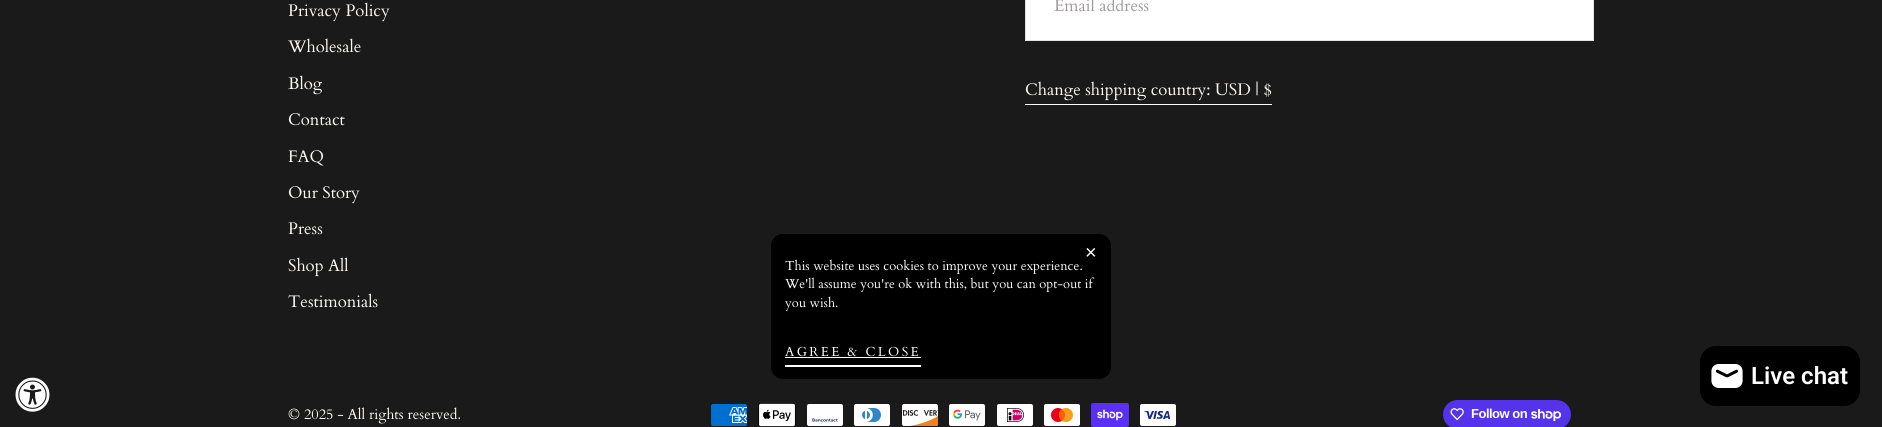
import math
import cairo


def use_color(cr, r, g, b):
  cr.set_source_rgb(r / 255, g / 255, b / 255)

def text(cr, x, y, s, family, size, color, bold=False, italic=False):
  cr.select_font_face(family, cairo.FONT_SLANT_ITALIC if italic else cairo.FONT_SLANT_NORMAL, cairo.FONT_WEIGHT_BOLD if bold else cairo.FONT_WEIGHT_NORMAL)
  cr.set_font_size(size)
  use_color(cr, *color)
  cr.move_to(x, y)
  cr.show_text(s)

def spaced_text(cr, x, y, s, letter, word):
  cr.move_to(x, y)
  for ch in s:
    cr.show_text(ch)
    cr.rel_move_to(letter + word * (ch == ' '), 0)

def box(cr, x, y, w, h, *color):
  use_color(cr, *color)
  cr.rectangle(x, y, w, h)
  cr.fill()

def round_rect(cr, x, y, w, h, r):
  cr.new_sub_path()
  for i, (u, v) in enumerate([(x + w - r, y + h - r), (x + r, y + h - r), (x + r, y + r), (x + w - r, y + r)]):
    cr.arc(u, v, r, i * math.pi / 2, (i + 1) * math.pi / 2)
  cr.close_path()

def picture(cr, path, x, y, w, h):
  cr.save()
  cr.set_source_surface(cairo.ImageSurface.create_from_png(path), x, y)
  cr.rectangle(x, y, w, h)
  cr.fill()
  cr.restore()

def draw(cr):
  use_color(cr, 26, 26, 26)
  cr.paint()
  use_color(cr, 255, 255, 255)
  cr.rectangle(1025.5, -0.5, 568, 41)
  cr.fill_preserve()
  use_color(cr, 230, 226, 225)
  cr.set_line_width(1)
  cr.stroke()
  box(cr, 1025, 104, 247, 1, 251, 249, 246)
  picture(cr, "img_01.png", 711, 404, 36, 22)
  picture(cr, "img_02.png", 758, 403, 38, 24)
  picture(cr, "img_03.png", 807, 404, 36, 22)
  picture(cr, "img_04.png", 854, 404, 36, 22)
  picture(cr, "img_05.png", 902, 404, 36, 22)
  picture(cr, "img_06.png", 949, 404, 36, 22)
  picture(cr, "img_07.png", 997, 404, 36, 22)
  picture(cr, "img_08.png", 1044, 404, 36, 22)
  picture(cr, "img_09.png", 1091, 403, 38, 24)
  picture(cr, "img_10.png", 1140, 404, 36, 22)
  use_color(cr, 84, 51, 235)
  round_rect(cr, 1443, 400, 128, 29, 14.5)
  cr.fill()
  picture(cr, "img_11.png", 1450, 408, 14, 13)
  picture(cr, "img_12.png", 1531, 409, 30, 12)
  use_color(cr, 0, 0, 0)
  round_rect(cr, 771, 234, 340, 145, 12)
  cr.fill()
  box(cr, 785, 357, 136, 1, 255, 255, 255)
  box(cr, 785, 365, 136, 2, 255, 255, 255)
  picture(cr, "img_13.png", 15, 377, 35, 35)
  use_color(cr, 0, 0, 0)
  round_rect(cr, 1700, 346, 160, 60, 16)
  cr.fill()
  picture(cr, "img_14.png", 1711, 364, 32, 24)
  text(cr, 288, 16, "Privacy Policy", "Cardo", 16.75, (251, 249, 246))
  text(cr, 288, 52, "Wholesale", "Cardo", 16.75, (251, 249, 246))
  text(cr, 288, 89, "Blog", "Cardo", 16.75, (251, 249, 246))
  text(cr, 288, 125, "Contact", "Cardo", 16.75, (251, 249, 246))
  text(cr, 288, 162, "FAQ", "Cardo", 16.75, (251, 249, 246))
  text(cr, 288, 198, "Our Story", "Cardo", 16.75, (251, 249, 246))
  text(cr, 288, 234, "Press", "Cardo", 16.75, (251, 249, 246))
  text(cr, 288, 271, "Shop All", "Cardo", 16.75, (251, 249, 246))
  text(cr, 288, 307, "Testimonials", "Cardo", 16.75, (251, 249, 246))
  text(cr, 1054, 11, "Email address", "Cardo", 16.75, (158, 154, 153))
  text(cr, 1025, 95, "Change shipping country: USD | $", "Cardo", 16.75, (251, 249, 246))
  text(cr, 288, 419, "© 2025 - All rights reserved.", "Cardo", 14.4, (251, 249, 246))
  cr.select_font_face("Liberation Sans", cairo.FONT_SLANT_NORMAL, cairo.FONT_WEIGHT_BOLD)
  cr.set_font_size(13)
  use_color(cr, 255, 255, 255)
  spaced_text(cr, 1471, 418, "Follow on", -0.5, 0)
  text(cr, 1085, 259, "×", "Liberation Sans", 20, (255, 255, 255))
  text(cr, 785, 270, "This website uses cookies to improve your experience.", "Cardo", 13, (255, 255, 255))
  text(cr, 785, 288, "We'll assume you're ok with this, but you can opt-out if", "Cardo", 13, (255, 255, 255))
  text(cr, 785, 307, "you wish.", "Cardo", 13, (255, 255, 255))
  spaced_text(cr, 785, 356, "AGREE & CLOSE", 2.4, 0)
  text(cr, 1751, 384, "Live chat", "Roboto SemiBold", 24, (255, 255, 255))


surface = cairo.ImageSurface(cairo.FORMAT_RGB24, 1882, 427)
cr = cairo.Context(surface)
options = cairo.FontOptions()
options.set_hint_metrics(cairo.HINT_METRICS_OFF)
options.set_hint_style(cairo.HINT_STYLE_NONE)
cr.set_font_options(options)
cr.set_miter_limit(4)
draw(cr)
surface.write_to_png("out.png")
